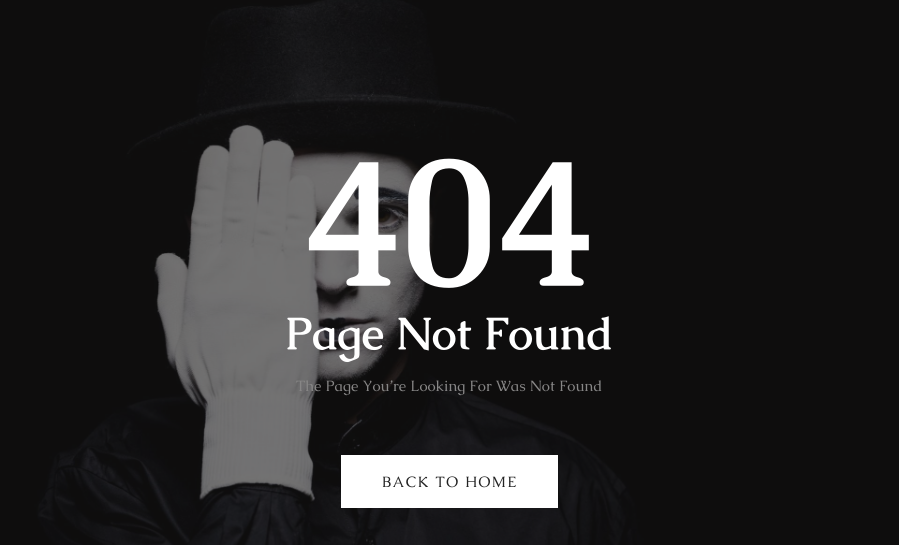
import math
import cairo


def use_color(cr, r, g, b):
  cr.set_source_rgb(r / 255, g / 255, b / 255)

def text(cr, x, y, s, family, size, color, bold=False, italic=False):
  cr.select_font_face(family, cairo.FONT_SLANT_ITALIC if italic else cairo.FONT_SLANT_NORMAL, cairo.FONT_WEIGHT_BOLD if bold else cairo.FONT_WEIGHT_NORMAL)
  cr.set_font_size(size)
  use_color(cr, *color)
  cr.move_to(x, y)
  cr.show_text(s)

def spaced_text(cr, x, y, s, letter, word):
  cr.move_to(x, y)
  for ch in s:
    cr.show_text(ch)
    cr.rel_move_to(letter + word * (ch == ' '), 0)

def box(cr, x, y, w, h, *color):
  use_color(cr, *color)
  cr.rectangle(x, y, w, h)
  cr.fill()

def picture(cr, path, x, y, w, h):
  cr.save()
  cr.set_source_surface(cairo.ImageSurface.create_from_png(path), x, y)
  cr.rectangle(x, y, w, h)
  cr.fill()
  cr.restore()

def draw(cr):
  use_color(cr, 255, 255, 255)
  cr.paint()
  picture(cr, "img_01.png", 0, 0, 899, 545)
  box(cr, 341, 455, 217, 53, 255, 255, 255)
  text(cr, 304, 284, "404", "Caudex", 180, (255, 255, 255), bold=True)
  text(cr, 285, 349, "Page Not Found", "Caudex", 45, (255, 255, 255), bold=True)
  text(cr, 296, 391, "The Page You’re Looking For Was Not Found", "Caudex", 15, (135, 134, 134))
  use_color(cr, 35, 35, 35)
  spaced_text(cr, 382, 487, "BACK TO HOME", 1.5, 0)


surface = cairo.ImageSurface(cairo.FORMAT_RGB24, 899, 545)
cr = cairo.Context(surface)
options = cairo.FontOptions()
options.set_hint_metrics(cairo.HINT_METRICS_OFF)
options.set_hint_style(cairo.HINT_STYLE_NONE)
cr.set_font_options(options)
cr.set_miter_limit(4)
draw(cr)
surface.write_to_png("out.png")
